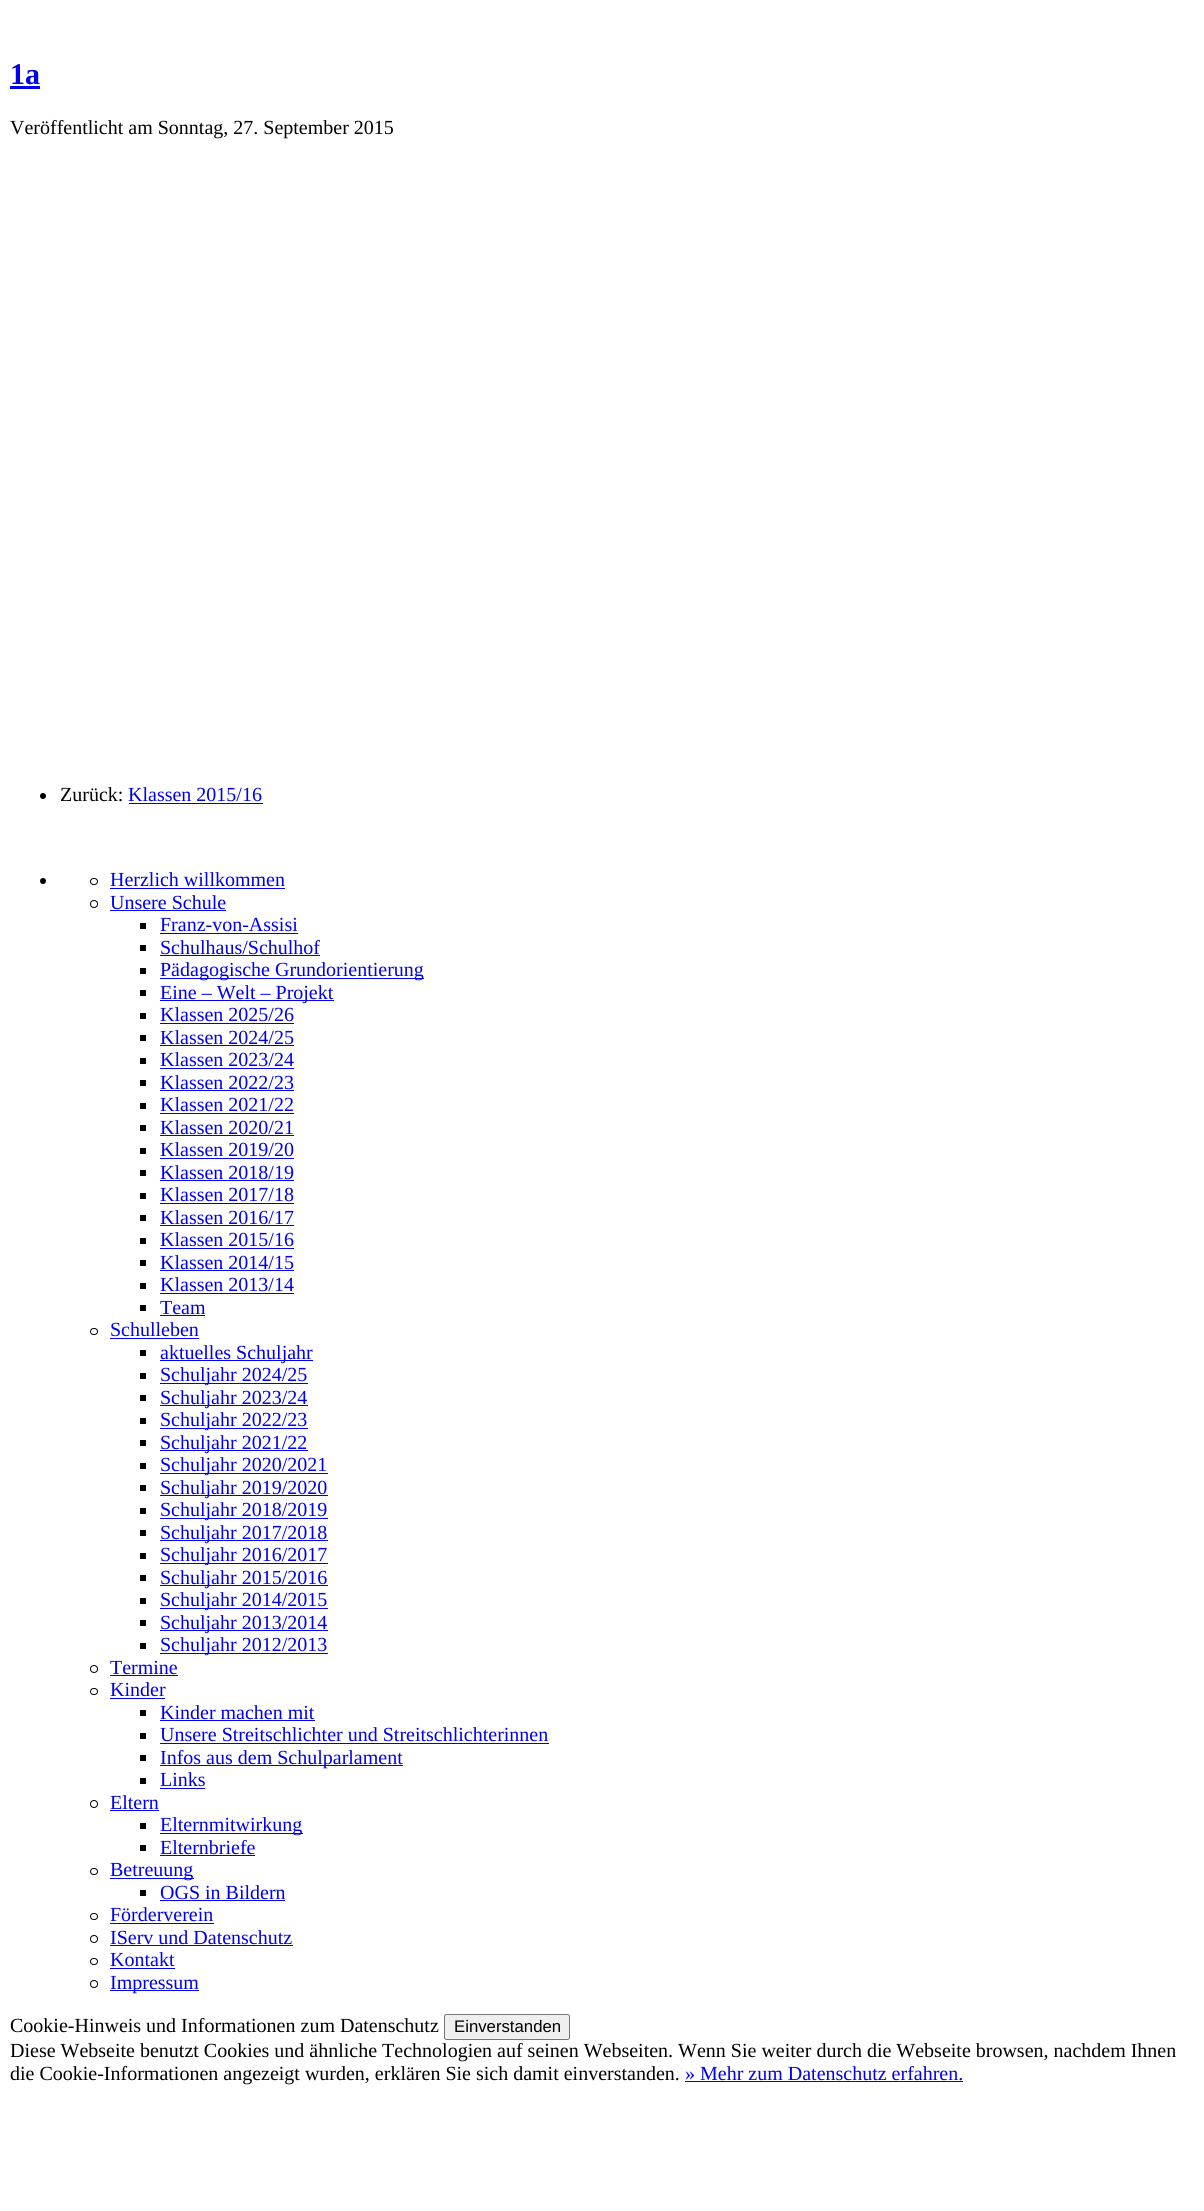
import math
import cairo


def use_color(cr, r, g, b):
  cr.set_source_rgb(r / 255, g / 255, b / 255)

def text(cr, x, y, s, family, size, color, bold=False, italic=False):
  cr.select_font_face(family, cairo.FONT_SLANT_ITALIC if italic else cairo.FONT_SLANT_NORMAL, cairo.FONT_WEIGHT_BOLD if bold else cairo.FONT_WEIGHT_NORMAL)
  cr.set_font_size(size)
  use_color(cr, *color)
  cr.move_to(x, y)
  cr.show_text(s)

def box(cr, x, y, w, h, *color):
  use_color(cr, *color)
  cr.rectangle(x, y, w, h)
  cr.fill()

def round_rect(cr, x, y, w, h, r):
  cr.new_sub_path()
  for i, (u, v) in enumerate([(x + w - r, y + h - r), (x + r, y + h - r), (x + r, y + r), (x + w - r, y + r)]):
    cr.arc(u, v, r, i * math.pi / 2, (i + 1) * math.pi / 2)
  cr.close_path()

def draw(cr):
  use_color(cr, 255, 255, 255)
  cr.paint()
  box(cr, 10, 86, 30, 3, 0, 0, 238)
  use_color(cr, 0, 0, 0)
  cr.arc(43, 796, 3, 0, 2 * math.pi)
  cr.fill()
  box(cr, 129, 803, 134, 1, 0, 0, 238)
  use_color(cr, 0, 0, 0)
  cr.arc(43, 881, 3, 0, 2 * math.pi)
  cr.fill()
  round_rect(cr, 90.5, 878.5, 7, 6, 3)
  cr.set_line_width(1)
  cr.stroke()
  box(cr, 110, 888, 175, 1, 0, 0, 238)
  cr.arc(94, 904, 3.5, 0, 2 * math.pi)
  use_color(cr, 0, 0, 0)
  cr.stroke()
  box(cr, 110, 910, 116, 1, 0, 0, 238)
  box(cr, 140, 923, 6, 6, 0, 0, 0)
  box(cr, 160, 933, 138, 1, 0, 0, 238)
  box(cr, 140, 945, 6, 6, 0, 0, 0)
  box(cr, 160, 955, 160, 1, 0, 0, 238)
  box(cr, 140, 968, 6, 6, 0, 0, 0)
  box(cr, 160, 978, 264, 1, 0, 0, 238)
  box(cr, 140, 990, 6, 6, 0, 0, 0)
  box(cr, 160, 1000, 174, 1, 0, 0, 238)
  box(cr, 140, 1013, 6, 6, 0, 0, 0)
  box(cr, 160, 1023, 134, 1, 0, 0, 238)
  box(cr, 140, 1035, 6, 6, 0, 0, 0)
  box(cr, 160, 1045, 134, 1, 0, 0, 238)
  box(cr, 140, 1058, 6, 6, 0, 0, 0)
  box(cr, 160, 1068, 134, 1, 0, 0, 238)
  box(cr, 140, 1080, 6, 6, 0, 0, 0)
  box(cr, 160, 1090, 134, 1, 0, 0, 238)
  box(cr, 140, 1103, 6, 6, 0, 0, 0)
  box(cr, 160, 1113, 134, 1, 0, 0, 238)
  box(cr, 140, 1125, 6, 6, 0, 0, 0)
  box(cr, 160, 1135, 134, 1, 0, 0, 238)
  box(cr, 140, 1148, 6, 6, 0, 0, 0)
  box(cr, 160, 1158, 134, 1, 0, 0, 238)
  box(cr, 140, 1170, 6, 6, 0, 0, 0)
  box(cr, 160, 1180, 134, 1, 0, 0, 238)
  box(cr, 140, 1193, 6, 6, 0, 0, 0)
  box(cr, 160, 1203, 134, 1, 0, 0, 238)
  box(cr, 140, 1215, 6, 6, 0, 0, 0)
  box(cr, 160, 1225, 134, 1, 0, 0, 238)
  box(cr, 140, 1238, 6, 6, 0, 0, 0)
  box(cr, 160, 1248, 134, 1, 0, 0, 238)
  box(cr, 140, 1260, 6, 6, 0, 0, 0)
  box(cr, 160, 1270, 134, 1, 0, 0, 238)
  box(cr, 140, 1283, 6, 6, 0, 0, 0)
  box(cr, 160, 1293, 134, 1, 0, 0, 238)
  box(cr, 140, 1305, 6, 6, 0, 0, 0)
  box(cr, 160, 1315, 45, 1, 0, 0, 238)
  round_rect(cr, 90.5, 1328.5, 7, 6, 3)
  use_color(cr, 0, 0, 0)
  cr.stroke()
  box(cr, 110, 1338, 89, 1, 0, 0, 238)
  box(cr, 140, 1350, 6, 6, 0, 0, 0)
  box(cr, 160, 1360, 153, 1, 0, 0, 238)
  box(cr, 140, 1373, 6, 6, 0, 0, 0)
  box(cr, 160, 1383, 148, 1, 0, 0, 238)
  box(cr, 140, 1395, 6, 6, 0, 0, 0)
  box(cr, 160, 1405, 148, 1, 0, 0, 238)
  box(cr, 140, 1418, 6, 6, 0, 0, 0)
  box(cr, 160, 1428, 148, 1, 0, 0, 238)
  box(cr, 140, 1440, 6, 6, 0, 0, 0)
  box(cr, 160, 1450, 148, 1, 0, 0, 238)
  box(cr, 140, 1463, 6, 6, 0, 0, 0)
  box(cr, 160, 1473, 168, 1, 0, 0, 238)
  box(cr, 140, 1485, 6, 6, 0, 0, 0)
  box(cr, 160, 1495, 168, 1, 0, 0, 238)
  box(cr, 140, 1508, 6, 6, 0, 0, 0)
  box(cr, 160, 1518, 168, 1, 0, 0, 238)
  box(cr, 140, 1530, 6, 6, 0, 0, 0)
  box(cr, 160, 1540, 168, 1, 0, 0, 238)
  box(cr, 140, 1553, 6, 6, 0, 0, 0)
  box(cr, 160, 1563, 168, 1, 0, 0, 238)
  box(cr, 140, 1575, 6, 6, 0, 0, 0)
  box(cr, 160, 1585, 168, 1, 0, 0, 238)
  box(cr, 140, 1598, 6, 6, 0, 0, 0)
  box(cr, 160, 1608, 168, 1, 0, 0, 238)
  box(cr, 140, 1620, 6, 6, 0, 0, 0)
  box(cr, 160, 1630, 168, 1, 0, 0, 238)
  box(cr, 140, 1643, 6, 6, 0, 0, 0)
  box(cr, 160, 1653, 168, 1, 0, 0, 238)
  cr.arc(94, 1669, 3.5, 0, 2 * math.pi)
  use_color(cr, 0, 0, 0)
  cr.stroke()
  box(cr, 110, 1675, 68, 1, 0, 0, 238)
  round_rect(cr, 90.5, 1688.5, 7, 6, 3)
  use_color(cr, 0, 0, 0)
  cr.stroke()
  box(cr, 110, 1698, 55, 1, 0, 0, 238)
  box(cr, 140, 1710, 6, 6, 0, 0, 0)
  box(cr, 160, 1720, 155, 1, 0, 0, 238)
  box(cr, 140, 1733, 6, 6, 0, 0, 0)
  box(cr, 160, 1743, 389, 1, 0, 0, 238)
  box(cr, 140, 1755, 6, 6, 0, 0, 0)
  box(cr, 160, 1765, 243, 1, 0, 0, 238)
  box(cr, 140, 1778, 6, 6, 0, 0, 0)
  box(cr, 160, 1788, 45, 1, 0, 0, 238)
  cr.arc(94, 1804, 3.5, 0, 2 * math.pi)
  use_color(cr, 0, 0, 0)
  cr.stroke()
  box(cr, 110, 1810, 49, 1, 0, 0, 238)
  box(cr, 140, 1823, 6, 6, 0, 0, 0)
  box(cr, 160, 1833, 143, 1, 0, 0, 238)
  box(cr, 140, 1845, 6, 6, 0, 0, 0)
  box(cr, 160, 1855, 95, 1, 0, 0, 238)
  round_rect(cr, 90.5, 1868.5, 7, 6, 3)
  use_color(cr, 0, 0, 0)
  cr.stroke()
  box(cr, 110, 1878, 84, 1, 0, 0, 238)
  box(cr, 140, 1890, 6, 6, 0, 0, 0)
  box(cr, 160, 1900, 125, 1, 0, 0, 238)
  round_rect(cr, 90.5, 1913.5, 7, 6, 3)
  use_color(cr, 0, 0, 0)
  cr.stroke()
  box(cr, 110, 1923, 104, 1, 0, 0, 238)
  cr.arc(94, 1939, 3.5, 0, 2 * math.pi)
  use_color(cr, 0, 0, 0)
  cr.stroke()
  box(cr, 110, 1945, 183, 1, 0, 0, 238)
  round_rect(cr, 90.5, 1958.5, 7, 6, 3)
  use_color(cr, 0, 0, 0)
  cr.stroke()
  box(cr, 110, 1968, 65, 1, 0, 0, 238)
  cr.arc(94, 1984, 3.5, 0, 2 * math.pi)
  use_color(cr, 0, 0, 0)
  cr.stroke()
  box(cr, 110, 1990, 89, 1, 0, 0, 238)
  use_color(cr, 239, 239, 239)
  round_rect(cr, 444.5, 2014.5, 125, 25, 2)
  cr.fill_preserve()
  use_color(cr, 118, 118, 118)
  cr.stroke()
  box(cr, 685, 2081, 278, 1, 0, 0, 238)
  text(cr, 10, 84, "1a", "Liberation Serif", 30, (0, 0, 238), bold=True)
  text(cr, 10, 134, "Veröffentlicht am Sonntag, 27. September 2015", "Liberation Serif", 20, (0, 0, 0))
  text(cr, 60, 801, "Zurück:", "Liberation Serif", 20, (0, 0, 0))
  text(cr, 128, 801, "Klassen 2015/16", "Liberation Serif", 20, (0, 0, 238))
  text(cr, 110, 886, "Herzlich willkommen", "Liberation Serif", 20, (0, 0, 238))
  text(cr, 110, 909, "Unsere Schule", "Liberation Serif", 20, (0, 0, 238))
  text(cr, 160, 931, "Franz-von-Assisi", "Liberation Serif", 20, (0, 0, 238))
  text(cr, 160, 954, "Schulhaus/Schulhof", "Liberation Serif", 20, (0, 0, 238))
  text(cr, 160, 976, "Pädagogische Grundorientierung", "Liberation Serif", 20, (0, 0, 238))
  text(cr, 160, 999, "Eine – Welt – Projekt", "Liberation Serif", 20, (0, 0, 238))
  text(cr, 160, 1021, "Klassen 2025/26", "Liberation Serif", 20, (0, 0, 238))
  text(cr, 160, 1044, "Klassen 2024/25", "Liberation Serif", 20, (0, 0, 238))
  text(cr, 160, 1066, "Klassen 2023/24", "Liberation Serif", 20, (0, 0, 238))
  text(cr, 160, 1089, "Klassen 2022/23", "Liberation Serif", 20, (0, 0, 238))
  text(cr, 160, 1111, "Klassen 2021/22", "Liberation Serif", 20, (0, 0, 238))
  text(cr, 160, 1134, "Klassen 2020/21", "Liberation Serif", 20, (0, 0, 238))
  text(cr, 160, 1156, "Klassen 2019/20", "Liberation Serif", 20, (0, 0, 238))
  text(cr, 160, 1179, "Klassen 2018/19", "Liberation Serif", 20, (0, 0, 238))
  text(cr, 160, 1201, "Klassen 2017/18", "Liberation Serif", 20, (0, 0, 238))
  text(cr, 160, 1224, "Klassen 2016/17", "Liberation Serif", 20, (0, 0, 238))
  text(cr, 160, 1246, "Klassen 2015/16", "Liberation Serif", 20, (0, 0, 238))
  text(cr, 160, 1269, "Klassen 2014/15", "Liberation Serif", 20, (0, 0, 238))
  text(cr, 160, 1291, "Klassen 2013/14", "Liberation Serif", 20, (0, 0, 238))
  text(cr, 160, 1314, "Team", "Liberation Serif", 20, (0, 0, 238))
  text(cr, 110, 1336, "Schulleben", "Liberation Serif", 20, (0, 0, 238))
  text(cr, 160, 1359, "aktuelles Schuljahr", "Liberation Serif", 20, (0, 0, 238))
  text(cr, 160, 1381, "Schuljahr 2024/25", "Liberation Serif", 20, (0, 0, 238))
  text(cr, 160, 1404, "Schuljahr 2023/24", "Liberation Serif", 20, (0, 0, 238))
  text(cr, 160, 1426, "Schuljahr 2022/23", "Liberation Serif", 20, (0, 0, 238))
  text(cr, 160, 1449, "Schuljahr 2021/22", "Liberation Serif", 20, (0, 0, 238))
  text(cr, 160, 1471, "Schuljahr 2020/2021", "Liberation Serif", 20, (0, 0, 238))
  text(cr, 160, 1494, "Schuljahr 2019/2020", "Liberation Serif", 20, (0, 0, 238))
  text(cr, 160, 1516, "Schuljahr 2018/2019", "Liberation Serif", 20, (0, 0, 238))
  text(cr, 160, 1539, "Schuljahr 2017/2018", "Liberation Serif", 20, (0, 0, 238))
  text(cr, 160, 1561, "Schuljahr 2016/2017", "Liberation Serif", 20, (0, 0, 238))
  text(cr, 160, 1584, "Schuljahr 2015/2016", "Liberation Serif", 20, (0, 0, 238))
  text(cr, 160, 1606, "Schuljahr 2014/2015", "Liberation Serif", 20, (0, 0, 238))
  text(cr, 160, 1629, "Schuljahr 2013/2014", "Liberation Serif", 20, (0, 0, 238))
  text(cr, 160, 1651, "Schuljahr 2012/2013", "Liberation Serif", 20, (0, 0, 238))
  text(cr, 110, 1674, "Termine", "Liberation Serif", 20, (0, 0, 238))
  text(cr, 110, 1696, "Kinder", "Liberation Serif", 20, (0, 0, 238))
  text(cr, 160, 1719, "Kinder machen mit", "Liberation Serif", 20, (0, 0, 238))
  text(cr, 160, 1741, "Unsere Streitschlichter und Streitschlichterinnen", "Liberation Serif", 20, (0, 0, 238))
  text(cr, 160, 1764, "Infos aus dem Schulparlament", "Liberation Serif", 20, (0, 0, 238))
  text(cr, 160, 1786, "Links", "Liberation Serif", 20, (0, 0, 238))
  text(cr, 110, 1809, "Eltern", "Liberation Serif", 20, (0, 0, 238))
  text(cr, 160, 1831, "Elternmitwirkung", "Liberation Serif", 20, (0, 0, 238))
  text(cr, 160, 1854, "Elternbriefe", "Liberation Serif", 20, (0, 0, 238))
  text(cr, 110, 1876, "Betreuung", "Liberation Serif", 20, (0, 0, 238))
  text(cr, 160, 1899, "OGS in Bildern", "Liberation Serif", 20, (0, 0, 238))
  text(cr, 110, 1921, "Förderverein", "Liberation Serif", 20, (0, 0, 238))
  text(cr, 110, 1944, "IServ und Datenschutz", "Liberation Serif", 20, (0, 0, 238))
  text(cr, 110, 1966, "Kontakt", "Liberation Serif", 20, (0, 0, 238))
  text(cr, 110, 1989, "Impressum", "Liberation Serif", 20, (0, 0, 238))
  text(cr, 10, 2032, "Cookie-Hinweis und Informationen zum Datenschutz", "Liberation Serif", 20, (0, 0, 0))
  text(cr, 454, 2032, "Einverstanden", "Liberation Sans", 16.75, (0, 0, 0))
  text(cr, 10, 2057, "Diese Webseite benutzt Cookies und ähnliche Technologien auf seinen Webseiten. Wenn Sie weiter durch die Webseite browsen, nachdem Ihnen", "Liberation Serif", 20, (0, 0, 0))
  text(cr, 10, 2080, "die Cookie-Informationen angezeigt wurden, erklären Sie sich damit einverstanden.", "Liberation Serif", 20, (0, 0, 0))
  text(cr, 685, 2080, "» Mehr zum Datenschutz erfahren.", "Liberation Serif", 20, (0, 0, 238))


surface = cairo.ImageSurface(cairo.FORMAT_RGB24, 1204, 2211)
cr = cairo.Context(surface)
options = cairo.FontOptions()
options.set_hint_metrics(cairo.HINT_METRICS_OFF)
options.set_hint_style(cairo.HINT_STYLE_NONE)
cr.set_font_options(options)
cr.set_miter_limit(4)
draw(cr)
surface.write_to_png("out.png")
